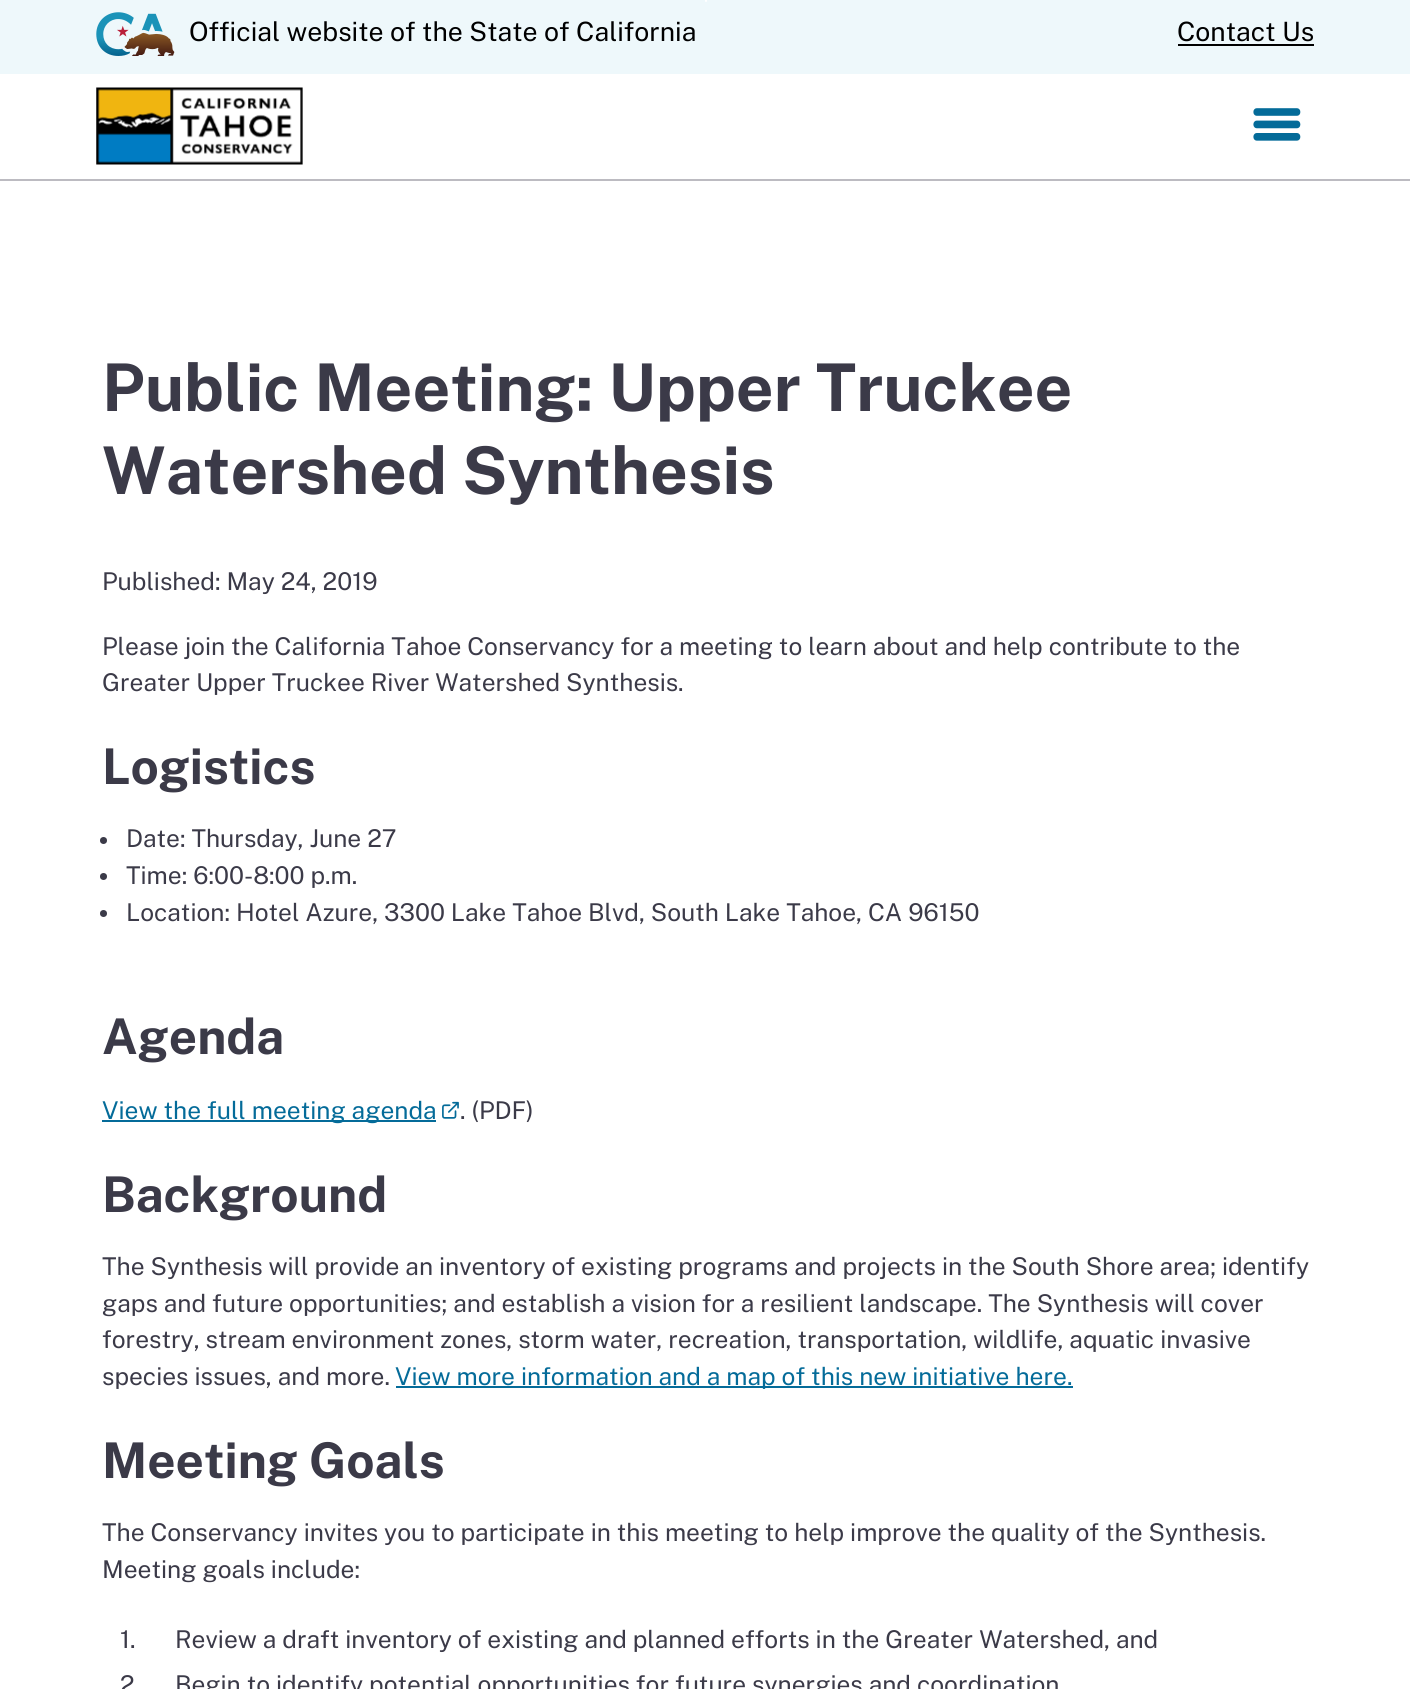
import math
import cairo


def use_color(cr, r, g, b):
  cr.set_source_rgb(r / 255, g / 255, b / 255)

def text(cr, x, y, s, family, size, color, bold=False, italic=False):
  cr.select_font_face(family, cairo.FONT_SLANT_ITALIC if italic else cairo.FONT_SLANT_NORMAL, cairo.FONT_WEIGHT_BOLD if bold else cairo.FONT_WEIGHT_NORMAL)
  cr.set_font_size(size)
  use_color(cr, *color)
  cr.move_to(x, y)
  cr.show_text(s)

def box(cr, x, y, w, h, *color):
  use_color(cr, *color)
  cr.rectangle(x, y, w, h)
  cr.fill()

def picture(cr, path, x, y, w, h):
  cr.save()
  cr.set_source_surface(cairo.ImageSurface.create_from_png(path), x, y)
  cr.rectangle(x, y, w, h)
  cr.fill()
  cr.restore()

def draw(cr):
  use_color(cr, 255, 255, 255)
  cr.paint()
  box(cr, 0, 0, 1410, 74, 238, 248, 251)
  use_color(cr, 255, 255, 255)
  cr.new_path()
  cr.move_to(705, 0)
  cr.line_to(707, 0)
  cr.line_to(707, 1)
  cr.curve_to(707, 1.5, 706.5, 2, 706, 2)
  cr.curve_to(705.5, 2, 705, 1.5, 705, 1)
  cr.close_path()
  cr.fill()
  picture(cr, "img_01.png", 96, 12, 79, 44)
  box(cr, 1178, 44, 136, 2, 0, 0, 0)
  box(cr, 0, 179, 1410, 2, 188, 187, 193)
  picture(cr, "img_02.png", 96, 87, 207, 78)
  picture(cr, "img_03.png", 1253, 108, 48, 33)
  use_color(cr, 59, 58, 72)
  cr.arc(103.5, 840.5, 3.5, 0, 2 * math.pi)
  cr.fill()
  cr.arc(103.5, 876.5, 3.5, 0, 2 * math.pi)
  cr.fill()
  cr.arc(103.5, 913.5, 3.5, 0, 2 * math.pi)
  cr.fill()
  box(cr, 102, 1120, 334, 2, 4, 107, 153)
  picture(cr, "img_04.png", 442, 1101, 17, 18)
  box(cr, 396, 1386, 677, 2, 4, 107, 153)
  text(cr, 189, 41, "Official website of the State of California", "Public Sans", 26.6, (0, 0, 0))
  text(cr, 1177, 41, "Contact Us", "Public Sans", 26.6, (0, 0, 0))
  text(cr, 102, 411, "Public Meeting: Upper Truckee", "Public Sans", 65.8, (59, 58, 72), bold=True)
  text(cr, 102, 494, "Watershed Synthesis", "Public Sans", 65.8, (59, 58, 72), bold=True)
  text(cr, 102, 590, "Published: May 24, 2019", "Public Sans", 24.5, (59, 58, 72))
  text(cr, 102, 655, "Please join the California Tahoe Conservancy for a meeting to learn about and help contribute to the", "Public Sans", 24.5, (59, 58, 72))
  text(cr, 102, 691, "Greater Upper Truckee River Watershed Synthesis.", "Public Sans", 24.5, (59, 58, 72))
  text(cr, 102, 784, "Logistics", "Public Sans", 49.25, (59, 58, 72), bold=True)
  text(cr, 126, 847, "Date: Thursday, June 27", "Public Sans", 24.5, (59, 58, 72))
  text(cr, 126, 884, "Time: 6:00-8:00 p.m.", "Public Sans", 24.5, (59, 58, 72))
  text(cr, 126, 921, "Location: Hotel Azure, 3300 Lake Tahoe Blvd, South Lake Tahoe, CA 96150", "Public Sans", 24.5, (59, 58, 72))
  text(cr, 102, 1054, "Agenda", "Public Sans", 49.25, (59, 58, 72), bold=True)
  text(cr, 102, 1119, "View the full meeting agenda", "Public Sans", 24.5, (4, 107, 153))
  text(cr, 460, 1119, ". (PDF)", "Public Sans", 24.5, (59, 58, 72))
  text(cr, 102, 1212, "Background", "Public Sans", 49.25, (59, 58, 72), bold=True)
  text(cr, 102, 1275, "The Synthesis will provide an inventory of existing programs and projects in the South Shore area; identify", "Public Sans", 24.5, (59, 58, 72))
  text(cr, 102, 1312, "gaps and future opportunities; and establish a vision for a resilient landscape. The Synthesis will cover", "Public Sans", 24.5, (59, 58, 72))
  text(cr, 102, 1348, "forestry, stream environment zones, storm water, recreation, transportation, wildlife, aquatic invasive", "Public Sans", 24.5, (59, 58, 72))
  text(cr, 102, 1385, "species issues, and more.", "Public Sans", 24.5, (59, 58, 72))
  text(cr, 395, 1385, "View more information and a map of this new initiative here.", "Public Sans", 24.5, (4, 107, 153))
  text(cr, 102, 1478, "Meeting Goals", "Public Sans", 49.25, (59, 58, 72), bold=True)
  text(cr, 102, 1541, "The Conservancy invites you to participate in this meeting to help improve the quality of the Synthesis.", "Public Sans", 24.5, (59, 58, 72))
  text(cr, 102, 1578, "Meeting goals include:", "Public Sans", 24.5, (59, 58, 72))
  text(cr, 120, 1648, "1.", "Public Sans", 24.5, (59, 58, 72))
  text(cr, 175, 1648, "Review a draft inventory of existing and planned efforts in the Greater Watershed, and", "Public Sans", 24.5, (59, 58, 72))
  text(cr, 120, 1693, "2", "Public Sans", 24.5, (59, 58, 72))
  text(cr, 175, 1693, "Begin to identify potential opportunities for future synergies and coordination", "Public Sans", 24.5, (59, 58, 72))


surface = cairo.ImageSurface(cairo.FORMAT_RGB24, 1410, 1689)
cr = cairo.Context(surface)
options = cairo.FontOptions()
options.set_hint_metrics(cairo.HINT_METRICS_OFF)
options.set_hint_style(cairo.HINT_STYLE_NONE)
cr.set_font_options(options)
cr.set_miter_limit(4)
draw(cr)
surface.write_to_png("out.png")
